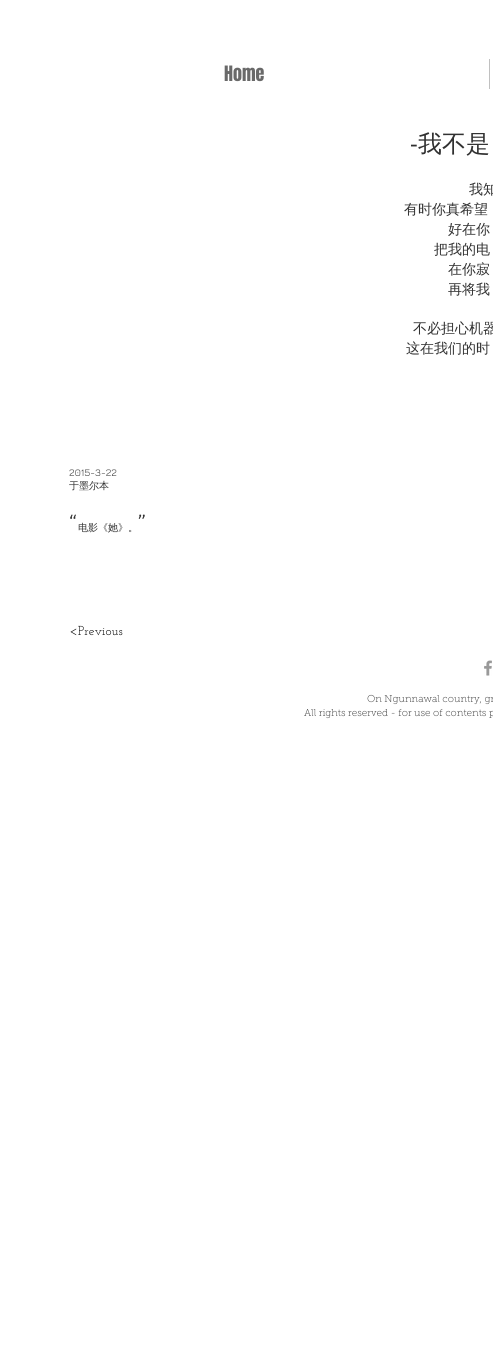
import math
import cairo


def use_color(cr, r, g, b):
  cr.set_source_rgb(r / 255, g / 255, b / 255)

def text(cr, x, y, s, family, size, color, bold=False, italic=False):
  cr.select_font_face(family, cairo.FONT_SLANT_ITALIC if italic else cairo.FONT_SLANT_NORMAL, cairo.FONT_WEIGHT_BOLD if bold else cairo.FONT_WEIGHT_NORMAL)
  cr.set_font_size(size)
  use_color(cr, *color)
  cr.move_to(x, y)
  cr.show_text(s)

def spaced_text(cr, x, y, s, letter, word):
  cr.move_to(x, y)
  for ch in s:
    cr.show_text(ch)
    cr.rel_move_to(letter + word * (ch == ' '), 0)

def box(cr, x, y, w, h, *color):
  use_color(cr, *color)
  cr.rectangle(x, y, w, h)
  cr.fill()

def picture(cr, path, x, y, w, h):
  cr.save()
  cr.set_source_surface(cairo.ImageSurface.create_from_png(path), x, y)
  cr.rectangle(x, y, w, h)
  cr.fill()
  cr.restore()

def draw(cr):
  use_color(cr, 255, 255, 255)
  cr.paint()
  box(cr, 489, 59, 1, 30, 192, 192, 192)
  picture(cr, "img_01.png", 484, 660, 8, 16)
  text(cr, 224, 81, "Home", "Anton", 18, (105, 105, 105))
  text(cr, 410, 152, "-", "Open Sans", 24, (49, 49, 49))
  text(cr, 418, 152, "我不是", "WenQuanYi Zen Hei Medium", 24, (49, 49, 49))
  text(cr, 469, 194, "我知", "WenQuanYi Zen Hei Medium", 14, (49, 49, 49))
  spaced_text(cr, 404, 214, "有时你真希望", 0, -1)
  text(cr, 448, 234, "好在你", "WenQuanYi Zen Hei Medium", 14, (49, 49, 49))
  text(cr, 434, 254, "把我的电", "WenQuanYi Zen Hei Medium", 14, (49, 49, 49))
  text(cr, 448, 274, "在你寂", "WenQuanYi Zen Hei Medium", 14, (49, 49, 49))
  text(cr, 448, 294, "再将我", "WenQuanYi Zen Hei Medium", 14, (49, 49, 49))
  text(cr, 413, 333, "不必担心机器", "WenQuanYi Zen Hei Medium", 14, (49, 49, 49))
  text(cr, 406, 353, "这在我们的时", "WenQuanYi Zen Hei Medium", 14, (49, 49, 49))
  text(cr, 69, 476, "2015-3-22", "Jura", 10, (49, 49, 49))
  text(cr, 69, 489, "于墨尔本", "WenQuanYi Zen Hei Medium", 10, (49, 49, 49))
  text(cr, 69, 531, "“", "Jura", 24, (49, 49, 49))
  text(cr, 138, 531, "”", "Jura", 24, (49, 49, 49))
  text(cr, 78, 531, "电影《她》。", "WenQuanYi Zen Hei Medium", 10, (49, 49, 49))
  text(cr, 69, 635, "<Previous", "Josefin Slab", 13, (0, 0, 0))
  text(cr, 367, 702, "On Ngunnawal country, gr", "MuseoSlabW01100 Thin", 10, (49, 49, 49))
  text(cr, 304, 716, "All rights reserved - for use of contents p", "MuseoSlabW01100 Thin", 10, (49, 49, 49))


surface = cairo.ImageSurface(cairo.FORMAT_RGB24, 493, 1362)
cr = cairo.Context(surface)
options = cairo.FontOptions()
options.set_hint_metrics(cairo.HINT_METRICS_OFF)
options.set_hint_style(cairo.HINT_STYLE_NONE)
cr.set_font_options(options)
cr.set_miter_limit(4)
draw(cr)
surface.write_to_png("out.png")
